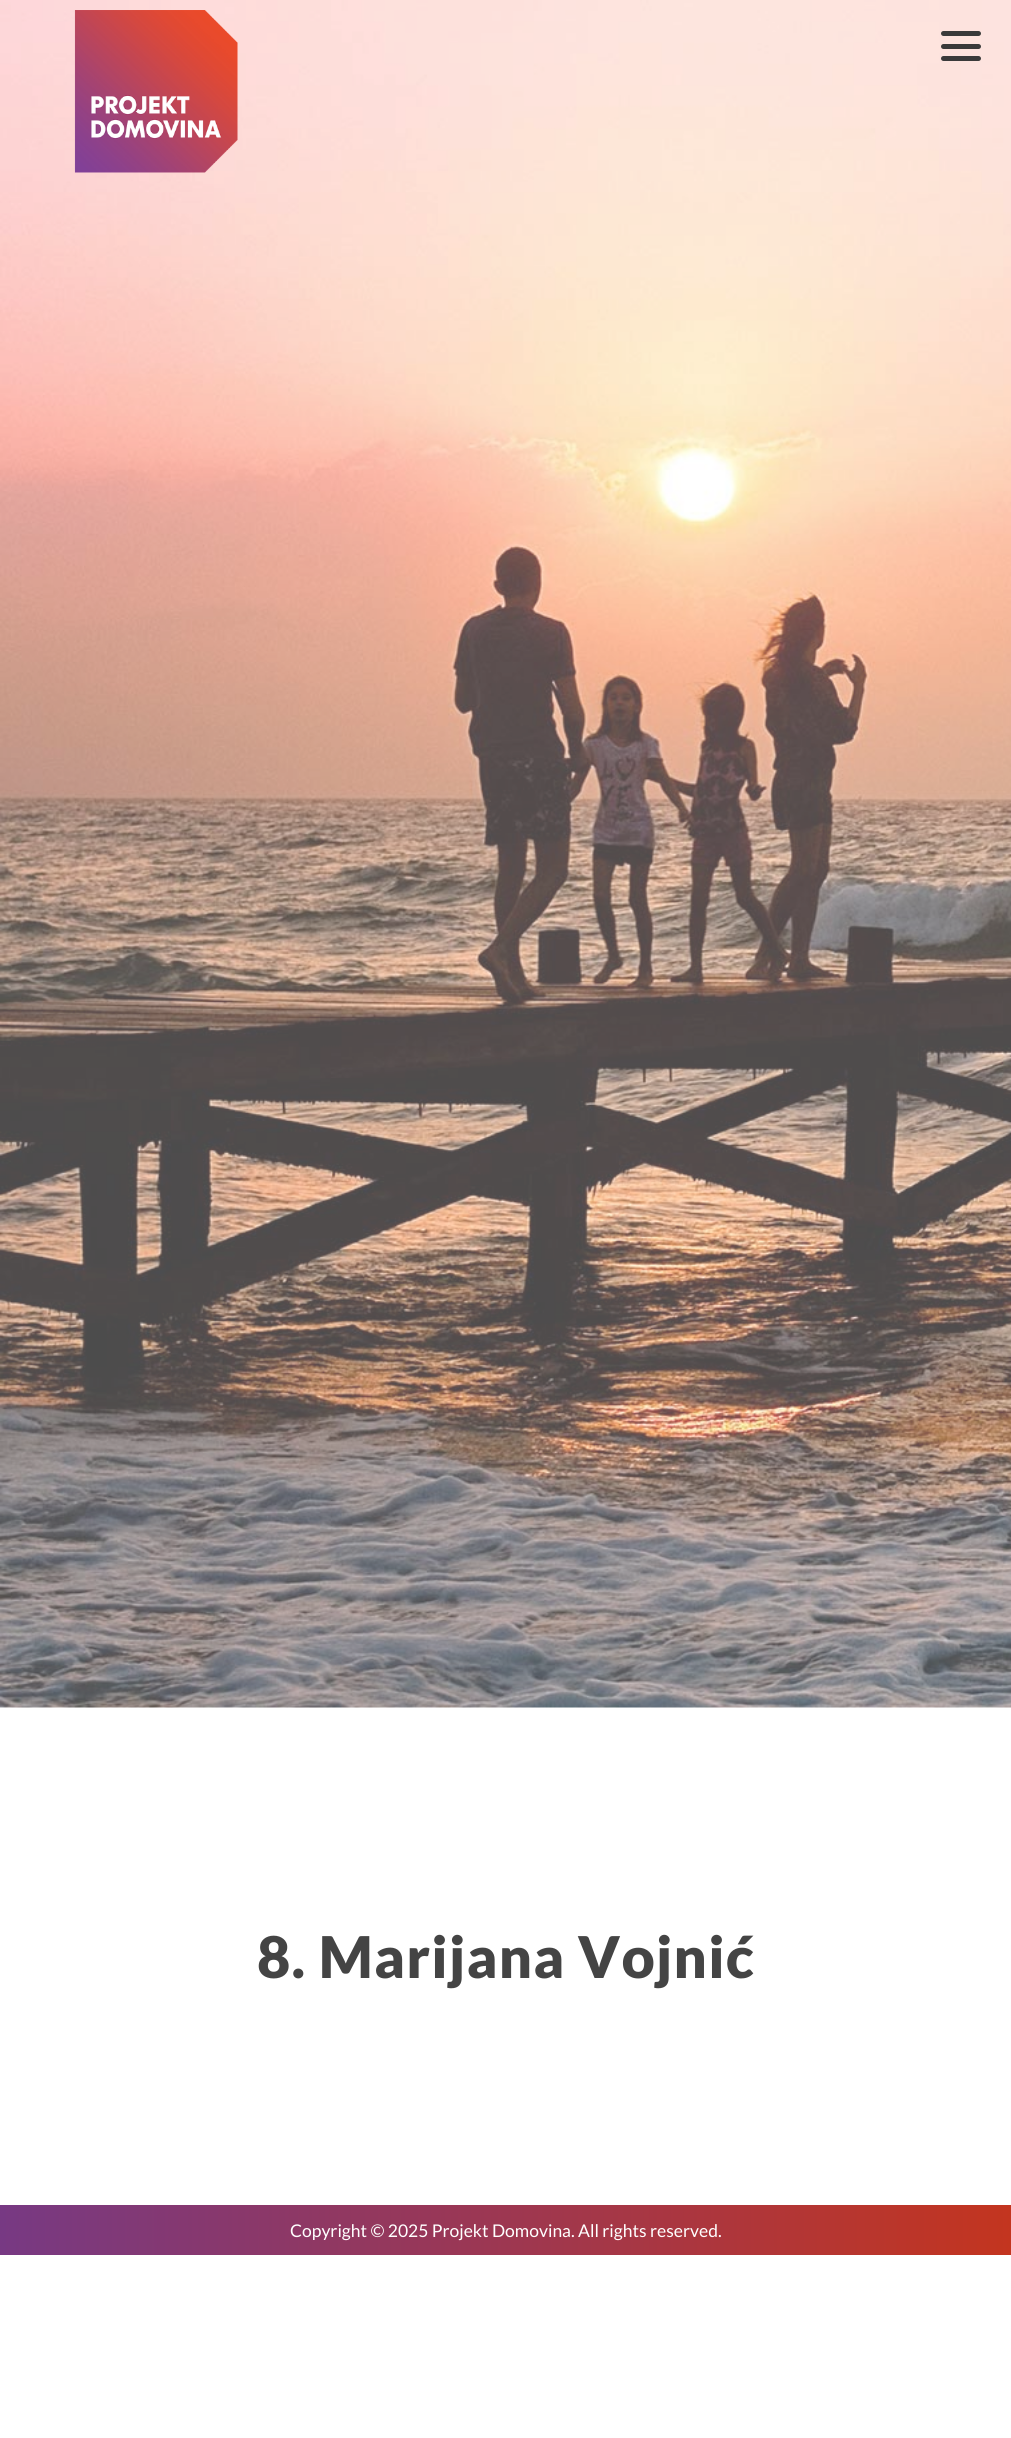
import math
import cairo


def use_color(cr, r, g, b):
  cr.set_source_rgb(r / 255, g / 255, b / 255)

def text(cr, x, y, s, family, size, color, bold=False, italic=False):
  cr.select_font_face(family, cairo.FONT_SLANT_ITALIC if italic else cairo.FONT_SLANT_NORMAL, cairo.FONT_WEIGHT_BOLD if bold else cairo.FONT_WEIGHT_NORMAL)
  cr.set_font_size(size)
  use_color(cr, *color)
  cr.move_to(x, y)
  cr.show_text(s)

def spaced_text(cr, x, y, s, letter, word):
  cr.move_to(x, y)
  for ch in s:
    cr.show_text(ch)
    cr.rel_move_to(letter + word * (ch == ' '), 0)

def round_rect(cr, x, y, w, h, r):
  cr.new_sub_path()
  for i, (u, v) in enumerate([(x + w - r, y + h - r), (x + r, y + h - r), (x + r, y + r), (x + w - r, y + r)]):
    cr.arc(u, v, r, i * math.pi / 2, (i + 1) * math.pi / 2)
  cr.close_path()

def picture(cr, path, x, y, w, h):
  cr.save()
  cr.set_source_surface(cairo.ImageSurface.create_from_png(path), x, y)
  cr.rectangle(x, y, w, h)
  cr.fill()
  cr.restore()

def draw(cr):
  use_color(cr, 255, 255, 255)
  cr.paint()
  picture(cr, "img_01.png", 0, 0, 1011, 1708)
  picture(cr, "img_02.png", 74, 10, 164, 163)
  use_color(cr, 58, 58, 58)
  round_rect(cr, 941, 44, 40, 5, 2.5)
  cr.fill()
  round_rect(cr, 941, 31, 40, 5, 2.5)
  cr.fill()
  round_rect(cr, 941, 56, 40, 5, 2.5)
  cr.fill()
  gradient = cairo.LinearGradient(0, 2230, 1011, 2230)
  gradient.add_color_stop_rgba(0, 0.467, 0.224, 0.514, 1)
  gradient.add_color_stop_rgba(1, 0.765, 0.208, 0.122, 1)
  cr.set_source(gradient)
  cr.rectangle(0, 2205, 1011, 50)
  cr.fill()
  cr.select_font_face("Lato Black")
  cr.set_font_size(57.5)
  use_color(cr, 68, 68, 68)
  spaced_text(cr, 257, 1978, "8. Marijana Vojnić", 1.25, 0)
  text(cr, 290, 2237, "Copyright © 2025 Projekt Domovina. All rights reserved.", "Lato", 17.5, (255, 255, 255))


surface = cairo.ImageSurface(cairo.FORMAT_RGB24, 1011, 2438)
cr = cairo.Context(surface)
options = cairo.FontOptions()
options.set_hint_metrics(cairo.HINT_METRICS_OFF)
options.set_hint_style(cairo.HINT_STYLE_NONE)
cr.set_font_options(options)
cr.set_miter_limit(4)
draw(cr)
surface.write_to_png("out.png")
